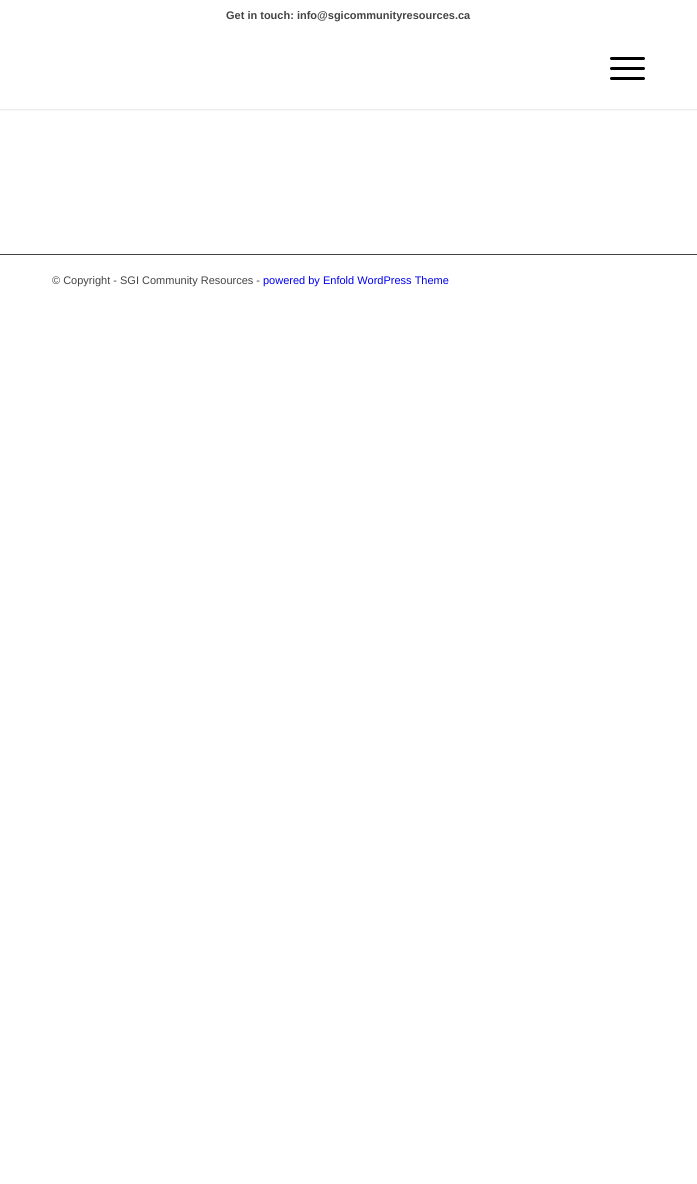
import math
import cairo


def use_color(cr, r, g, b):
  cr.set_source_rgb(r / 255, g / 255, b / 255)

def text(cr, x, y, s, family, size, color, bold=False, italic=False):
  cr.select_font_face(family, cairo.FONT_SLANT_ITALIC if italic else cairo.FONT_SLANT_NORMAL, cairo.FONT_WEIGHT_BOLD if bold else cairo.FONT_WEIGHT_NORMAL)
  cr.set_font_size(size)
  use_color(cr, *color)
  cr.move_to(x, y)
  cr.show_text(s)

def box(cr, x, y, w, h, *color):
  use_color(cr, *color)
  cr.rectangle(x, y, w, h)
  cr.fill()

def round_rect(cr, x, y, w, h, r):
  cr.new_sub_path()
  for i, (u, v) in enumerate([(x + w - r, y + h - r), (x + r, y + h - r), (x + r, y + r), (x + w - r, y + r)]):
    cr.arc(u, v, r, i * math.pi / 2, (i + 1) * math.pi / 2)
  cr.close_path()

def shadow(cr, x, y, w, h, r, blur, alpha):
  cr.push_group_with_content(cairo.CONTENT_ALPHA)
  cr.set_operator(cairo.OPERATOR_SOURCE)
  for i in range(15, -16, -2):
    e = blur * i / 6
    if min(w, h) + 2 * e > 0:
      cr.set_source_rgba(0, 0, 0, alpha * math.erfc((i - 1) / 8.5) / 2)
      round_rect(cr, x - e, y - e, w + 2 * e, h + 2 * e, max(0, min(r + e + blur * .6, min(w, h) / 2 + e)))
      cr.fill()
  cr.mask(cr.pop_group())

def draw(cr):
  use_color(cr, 255, 255, 255)
  cr.paint()
  cr.save()
  cr.rectangle(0, 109, 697, 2)
  cr.clip()
  use_color(cr, 0, 0, 0)
  shadow(cr, -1, -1, 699, 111, 0, 1, 0.1)
  cr.restore()
  use_color(cr, 0, 0, 0)
  round_rect(cr, 610, 67, 35, 3, 1.5)
  cr.fill()
  round_rect(cr, 610, 57, 35, 3, 1.5)
  cr.fill()
  round_rect(cr, 610, 77, 35, 3, 1.5)
  cr.fill()
  box(cr, 0, 254, 697, 1, 68, 68, 68)
  text(cr, 226, 19, "Get in touch: info@sgicommunityresources.ca", "Liberation Sans", 11, (68, 68, 68), bold=True)
  text(cr, 52, 284, "© Copyright - SGI Community Resources -", "Liberation Sans", 11, (68, 68, 68))
  text(cr, 263, 284, "powered by Enfold WordPress Theme", "Liberation Sans", 11, (0, 0, 238))


surface = cairo.ImageSurface(cairo.FORMAT_RGB24, 697, 1184)
cr = cairo.Context(surface)
options = cairo.FontOptions()
options.set_hint_metrics(cairo.HINT_METRICS_OFF)
options.set_hint_style(cairo.HINT_STYLE_NONE)
cr.set_font_options(options)
cr.set_miter_limit(4)
draw(cr)
surface.write_to_png("out.png")
